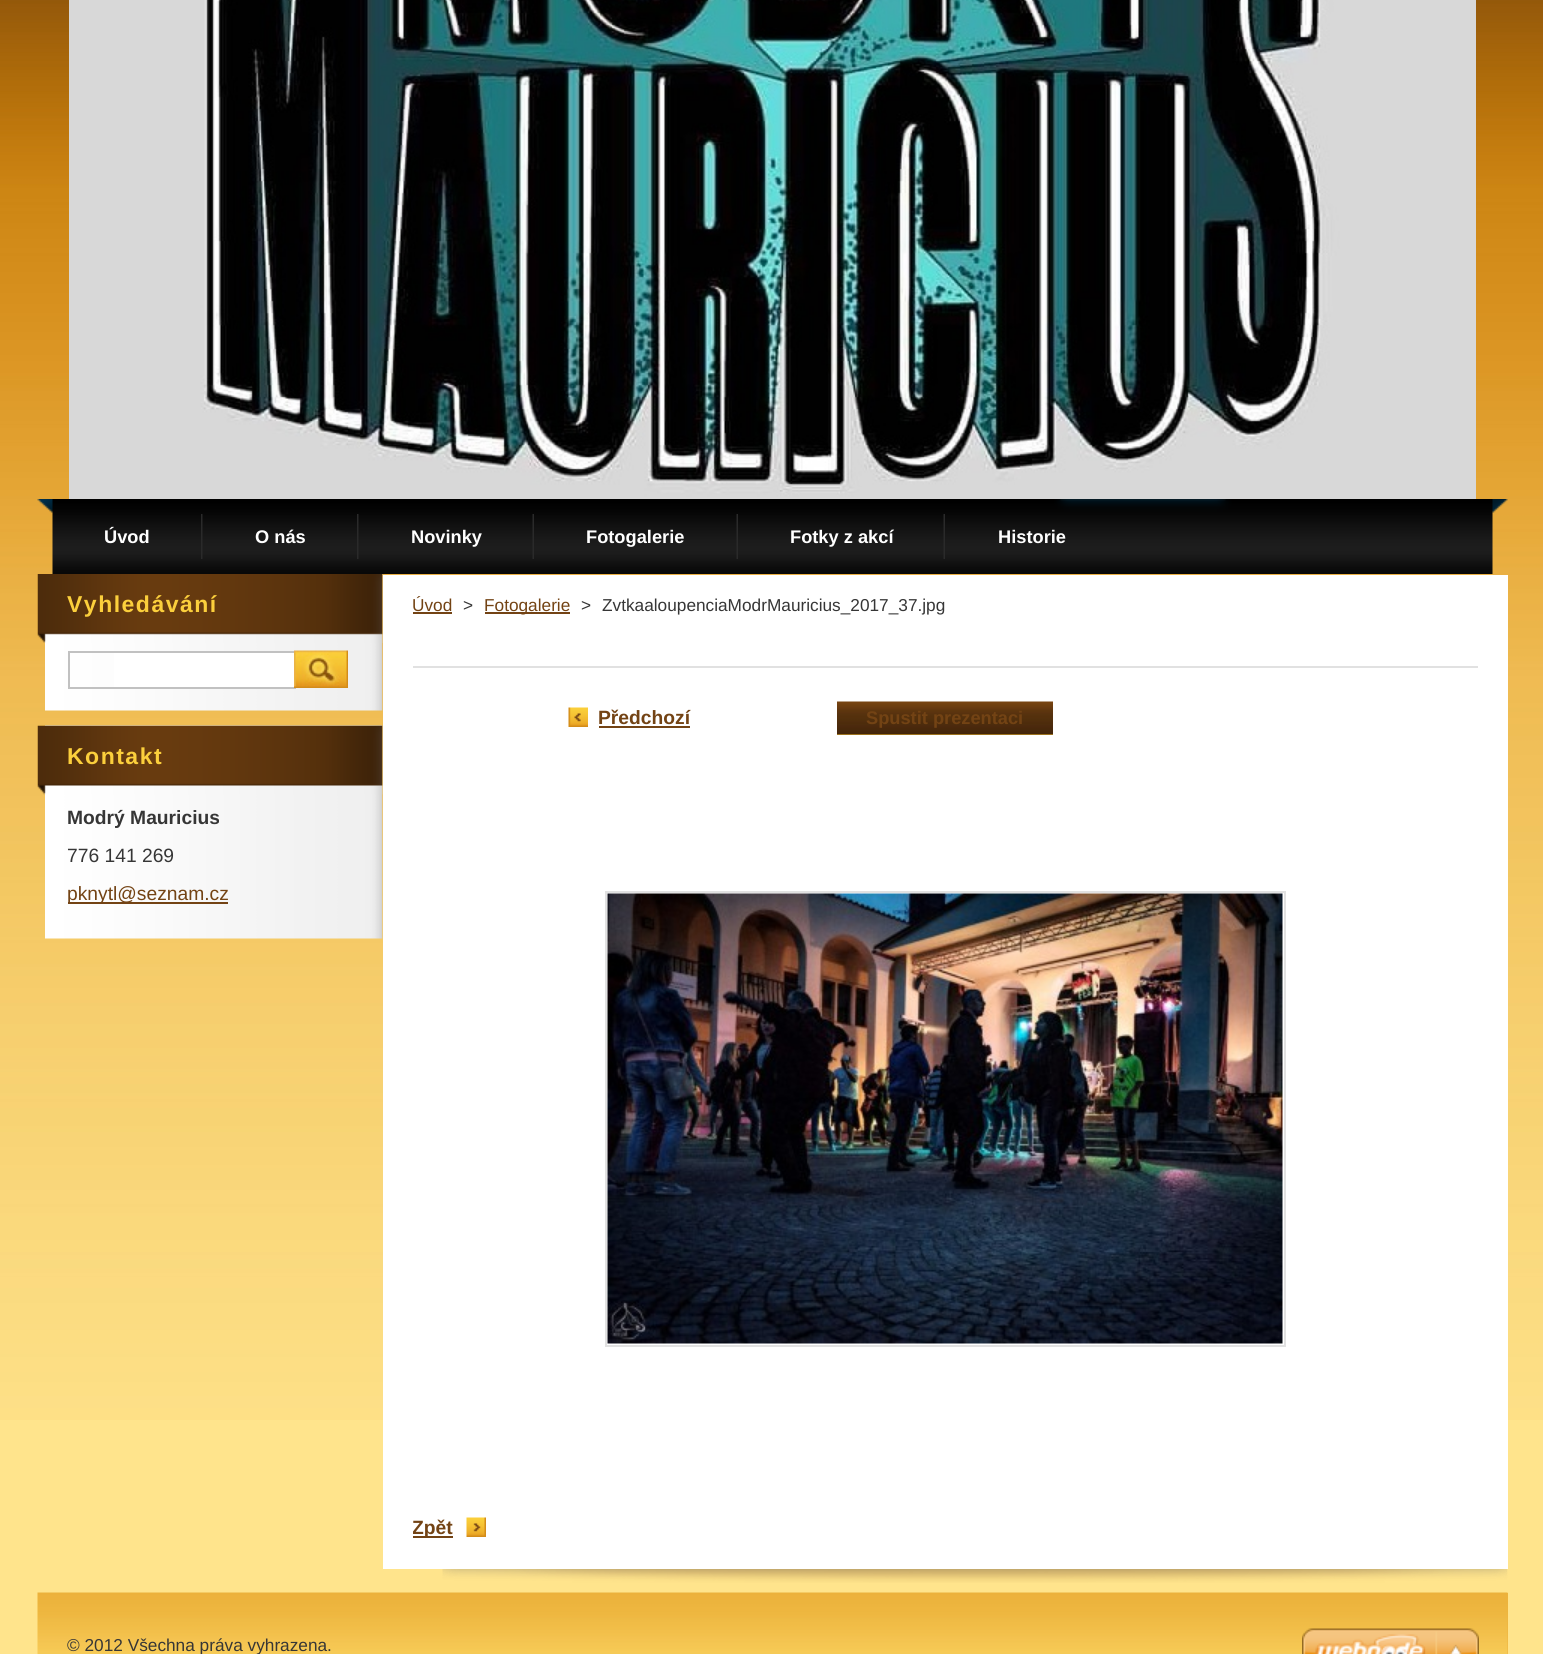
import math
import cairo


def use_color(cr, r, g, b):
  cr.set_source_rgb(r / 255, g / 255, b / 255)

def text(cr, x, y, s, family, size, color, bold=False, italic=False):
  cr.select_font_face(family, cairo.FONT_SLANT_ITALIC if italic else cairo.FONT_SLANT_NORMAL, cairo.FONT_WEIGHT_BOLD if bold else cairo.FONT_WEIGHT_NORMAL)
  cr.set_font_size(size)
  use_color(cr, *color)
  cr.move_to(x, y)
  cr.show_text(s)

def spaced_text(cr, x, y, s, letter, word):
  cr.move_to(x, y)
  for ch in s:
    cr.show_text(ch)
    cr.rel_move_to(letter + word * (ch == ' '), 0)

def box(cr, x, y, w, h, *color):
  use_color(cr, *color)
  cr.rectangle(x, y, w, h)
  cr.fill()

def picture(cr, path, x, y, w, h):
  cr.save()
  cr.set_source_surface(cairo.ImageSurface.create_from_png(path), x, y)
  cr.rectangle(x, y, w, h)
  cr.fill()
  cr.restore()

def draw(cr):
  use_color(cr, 255, 228, 140)
  cr.paint()
  picture(cr, "img_01.png", 0, 0, 1543, 1420)
  picture(cr, "img_02.png", 69, 0, 1407, 499)
  picture(cr, "img_03.png", 37, 499, 1471, 75)
  picture(cr, "img_04.png", 201, 514, 2, 45)
  picture(cr, "img_04.png", 357, 514, 2, 45)
  picture(cr, "img_05.png", 532, 514, 2, 45)
  picture(cr, "img_05.png", 736, 514, 2, 45)
  picture(cr, "img_05.png", 943, 514, 2, 45)
  picture(cr, "img_06.png", 45, 574, 338, 137)
  picture(cr, "img_07.png", 37, 574, 346, 69)
  box(cr, 114, 653, 180, 34, 255, 255, 255)
  cr.rectangle(69, 652, 226, 36)
  use_color(cr, 193, 193, 193)
  cr.stroke()
  picture(cr, "img_08.png", 294, 650, 54, 38)
  picture(cr, "img_09.png", 45, 725, 338, 214)
  picture(cr, "img_10.png", 37, 725, 346, 70)
  box(cr, 68, 902, 160, 2, 115, 67, 20)
  picture(cr, "img_11.png", 442, 1569, 1066, 14)
  box(cr, 383, 575, 1125, 994, 255, 255, 255)
  box(cr, 413, 612, 39, 2, 115, 67, 20)
  box(cr, 485, 612, 85, 2, 115, 67, 20)
  box(cr, 413, 666, 1065, 2, 225, 225, 225)
  picture(cr, "img_12.png", 568, 707, 20, 20)
  box(cr, 599, 726, 91, 2, 115, 67, 20)
  box(cr, 837, 734, 216, 1, 244, 191, 50)
  picture(cr, "img_13.png", 837, 701, 216, 34)
  cr.rectangle(606, 892, 679, 454)
  use_color(cr, 225, 225, 225)
  cr.stroke()
  picture(cr, "img_14.png", 607, 893, 676, 451)
  picture(cr, "img_15.png", 466, 1517, 20, 20)
  box(cr, 413, 1536, 40, 2, 115, 67, 20)
  box(cr, 1507, 1593, 1, 61, 237, 178, 60)
  picture(cr, "img_16.png", 37, 1592, 1471, 62)
  picture(cr, "img_17.png", 1302, 1628, 177, 26)
  text(cr, 104, 543, "Úvod", "Liberation Sans", 18.25, (255, 255, 255), bold=True)
  text(cr, 255, 543, "O nás", "Liberation Sans", 18.25, (255, 255, 255), bold=True)
  text(cr, 411, 543, "Novinky", "Liberation Sans", 18.25, (255, 255, 255), bold=True)
  text(cr, 586, 543, "Fotogalerie", "Liberation Sans", 18.25, (255, 255, 255), bold=True)
  text(cr, 790, 543, "Fotky z akcí", "Liberation Sans", 18.25, (255, 255, 255), bold=True)
  text(cr, 998, 543, "Historie", "Liberation Sans", 18.25, (255, 255, 255), bold=True)
  cr.set_font_size(23)
  use_color(cr, 251, 207, 60)
  spaced_text(cr, 67, 612, "Vyhledávání", 1.5, 0)
  spaced_text(cr, 67, 764, "Kontakt", 1.5, 0)
  text(cr, 67, 824, "Modrý Mauricius", "Liberation Sans", 19.25, (54, 54, 54), bold=True)
  text(cr, 67, 862, "776 141 269", "Liberation Sans", 19.25, (54, 54, 54))
  text(cr, 67, 900, "pknytl@seznam.cz", "Liberation Sans", 19.25, (115, 67, 20))
  text(cr, 412, 611, "Úvod", "Liberation Sans", 17.25, (115, 67, 20))
  text(cr, 463, 611, ">", "Liberation Sans", 17.25, (54, 54, 54))
  text(cr, 484, 611, "Fotogalerie", "Liberation Sans", 17.25, (115, 67, 20))
  text(cr, 581, 611, ">", "Liberation Sans", 17.25, (54, 54, 54))
  text(cr, 602, 611, "ZvtkaaloupenciaModrMauricius_2017_37.jpg", "Liberation Sans", 17.25, (54, 54, 54))
  text(cr, 598, 724, "Předchozí", "Liberation Sans", 19.25, (115, 67, 20), bold=True)
  text(cr, 866, 724, "Spustit prezentaci", "Liberation Sans", 18.25, (115, 67, 20), bold=True)
  cr.save()
  cr.rectangle(413, 683, 1065, 856)
  cr.clip()
  text(cr, 412, 1534, "Zpět", "Liberation Sans", 19.25, (115, 67, 20), bold=True)
  cr.restore()
  text(cr, 67, 1651, "© 2012 Všechna práva vyhrazena.", "Liberation Sans", 17.25, (54, 54, 54))


surface = cairo.ImageSurface(cairo.FORMAT_RGB24, 1543, 1654)
cr = cairo.Context(surface)
options = cairo.FontOptions()
options.set_hint_metrics(cairo.HINT_METRICS_OFF)
options.set_hint_style(cairo.HINT_STYLE_NONE)
cr.set_font_options(options)
cr.set_miter_limit(4)
draw(cr)
surface.write_to_png("out.png")
